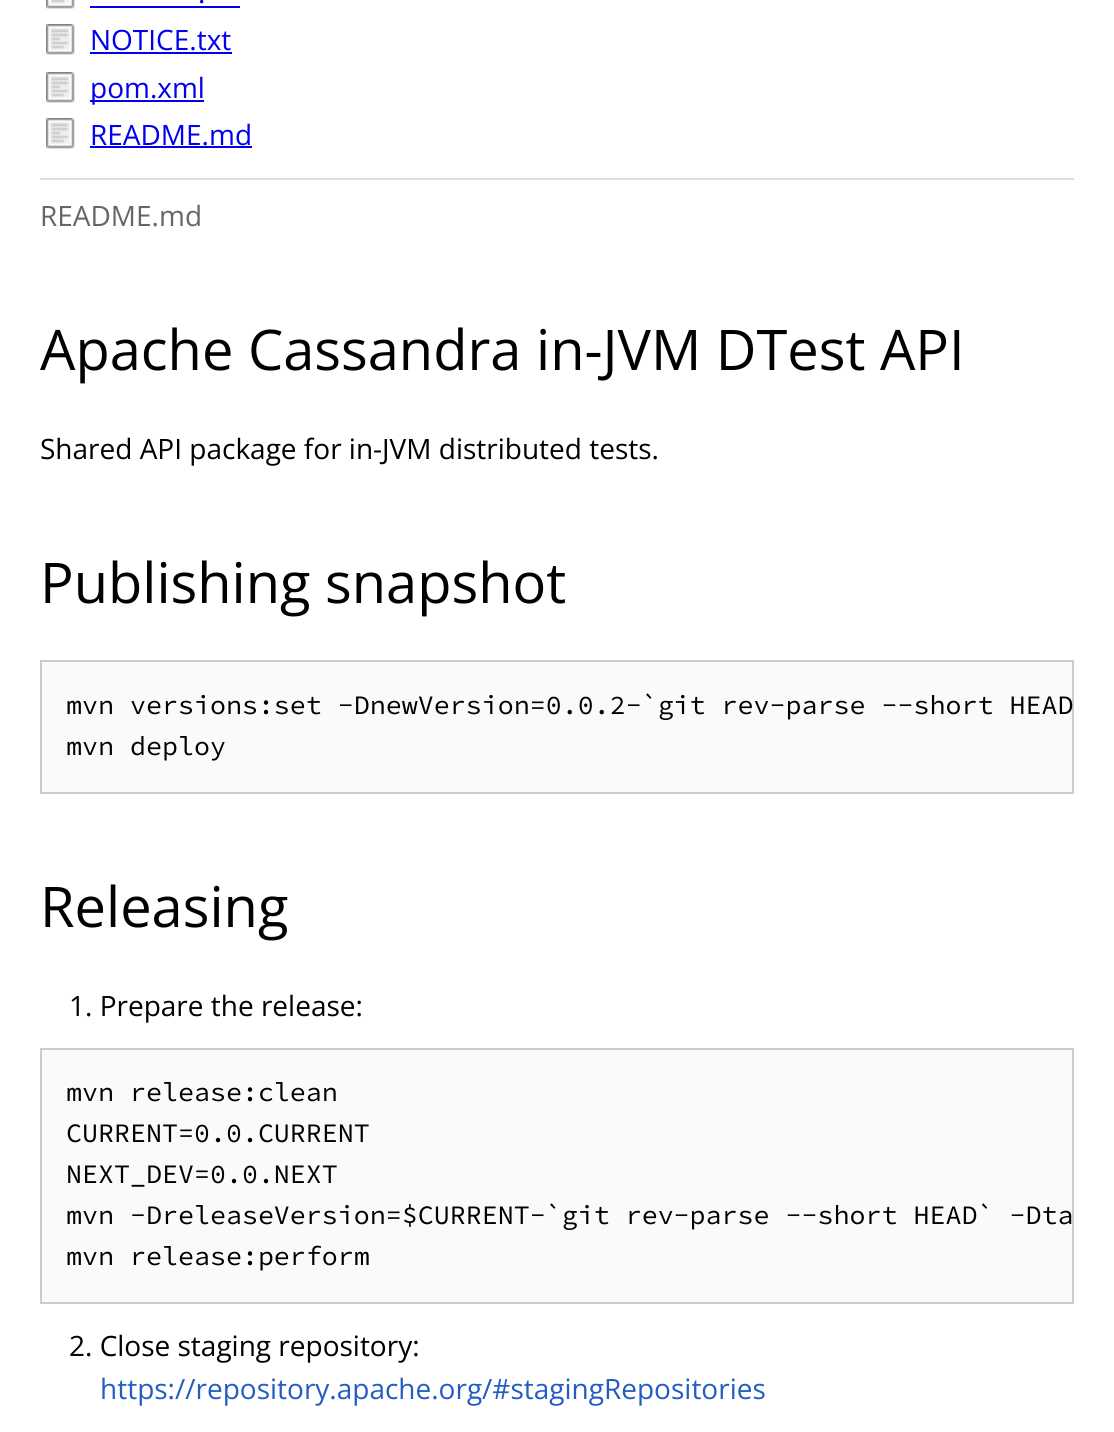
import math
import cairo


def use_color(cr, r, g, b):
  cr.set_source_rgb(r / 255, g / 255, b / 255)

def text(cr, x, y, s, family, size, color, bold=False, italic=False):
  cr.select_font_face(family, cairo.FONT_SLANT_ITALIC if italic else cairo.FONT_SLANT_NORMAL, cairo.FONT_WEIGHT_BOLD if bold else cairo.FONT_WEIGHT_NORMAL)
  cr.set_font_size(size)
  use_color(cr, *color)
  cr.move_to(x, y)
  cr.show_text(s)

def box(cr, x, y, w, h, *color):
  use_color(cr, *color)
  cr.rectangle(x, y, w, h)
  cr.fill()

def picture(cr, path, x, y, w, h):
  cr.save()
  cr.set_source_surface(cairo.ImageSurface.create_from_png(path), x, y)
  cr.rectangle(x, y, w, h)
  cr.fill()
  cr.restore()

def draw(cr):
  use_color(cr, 255, 255, 255)
  cr.paint()
  picture(cr, "img_01.png", 46, 0, 29, 9)
  box(cr, 90, 6, 150, 2, 0, 0, 238)
  picture(cr, "img_02.png", 46, 24, 29, 31)
  box(cr, 90, 52, 142, 2, 0, 0, 238)
  picture(cr, "img_02.png", 46, 72, 29, 31)
  box(cr, 90, 100, 114, 2, 0, 0, 238)
  picture(cr, "img_02.png", 46, 118, 29, 31)
  box(cr, 90, 146, 162, 2, 0, 0, 238)
  box(cr, 40, 178, 1034, 2, 221, 221, 221)
  use_color(cr, 250, 250, 250)
  cr.rectangle(41, 661, 1032, 132)
  cr.fill_preserve()
  use_color(cr, 204, 204, 204)
  cr.stroke()
  use_color(cr, 250, 250, 250)
  cr.rectangle(41, 1049, 1032, 254)
  cr.fill_preserve()
  use_color(cr, 204, 204, 204)
  cr.stroke()
  text(cr, 198, 3, ".", "Open Sans", 28, (0, 0, 238))
  text(cr, 90, 50, "NOTICE.txt", "Open Sans", 28, (0, 0, 238))
  text(cr, 90, 98, "pom.xml", "Open Sans", 28, (0, 0, 238))
  text(cr, 90, 145, "README.md", "Open Sans", 28, (0, 0, 238))
  text(cr, 40, 226, "README.md", "Open Sans", 28, (102, 102, 102))
  text(cr, 40, 370, "Apache Cassandra in-JVM DTest API", "Open Sans", 56, (0, 0, 0))
  text(cr, 40, 459, "Shared API package for in-JVM distributed tests.", "Open Sans", 28, (0, 0, 0))
  text(cr, 40, 603, "Publishing snapshot", "Open Sans", 56, (0, 0, 0))
  cr.save()
  cr.rectangle(42, 662, 1030, 130)
  cr.clip()
  text(cr, 66, 714, "mvn versions:set -DnewVersion=0.0.2-`git rev-parse --short HEAD", "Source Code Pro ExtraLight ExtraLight", 26.65, (0, 0, 0))
  cr.restore()
  text(cr, 66, 755, "mvn deploy", "Source Code Pro ExtraLight ExtraLight", 26.65, (0, 0, 0))
  text(cr, 40, 927, "Releasing", "Open Sans", 56, (0, 0, 0))
  text(cr, 69, 1016, "1. Prepare the release:", "Open Sans", 28, (0, 0, 0))
  text(cr, 66, 1101, "mvn release:clean", "Source Code Pro ExtraLight ExtraLight", 26.65, (0, 0, 0))
  text(cr, 66, 1142, "CURRENT=0.0.CURRENT", "Source Code Pro ExtraLight ExtraLight", 26.65, (0, 0, 0))
  text(cr, 66, 1183, "NEXT_DEV=0.0.NEXT", "Source Code Pro ExtraLight ExtraLight", 26.65, (0, 0, 0))
  text(cr, 66, 1224, "mvn -DreleaseVersion=$CURRENT-`git rev-parse --short HEAD` -Dta", "Source Code Pro ExtraLight ExtraLight", 26.65, (0, 0, 0))
  text(cr, 66, 1265, "mvn release:perform", "Source Code Pro ExtraLight ExtraLight", 26.65, (0, 0, 0))
  text(cr, 69, 1356, "2. Close staging repository:", "Open Sans", 28, (0, 0, 0))
  text(cr, 100, 1399, "https://repository.apache.org/#stagingRepositories", "Open Sans", 28, (36, 93, 193))


surface = cairo.ImageSurface(cairo.FORMAT_RGB24, 1114, 1432)
cr = cairo.Context(surface)
options = cairo.FontOptions()
options.set_hint_metrics(cairo.HINT_METRICS_OFF)
options.set_hint_style(cairo.HINT_STYLE_NONE)
cr.set_font_options(options)
cr.set_miter_limit(4)
draw(cr)
surface.write_to_png("out.png")
